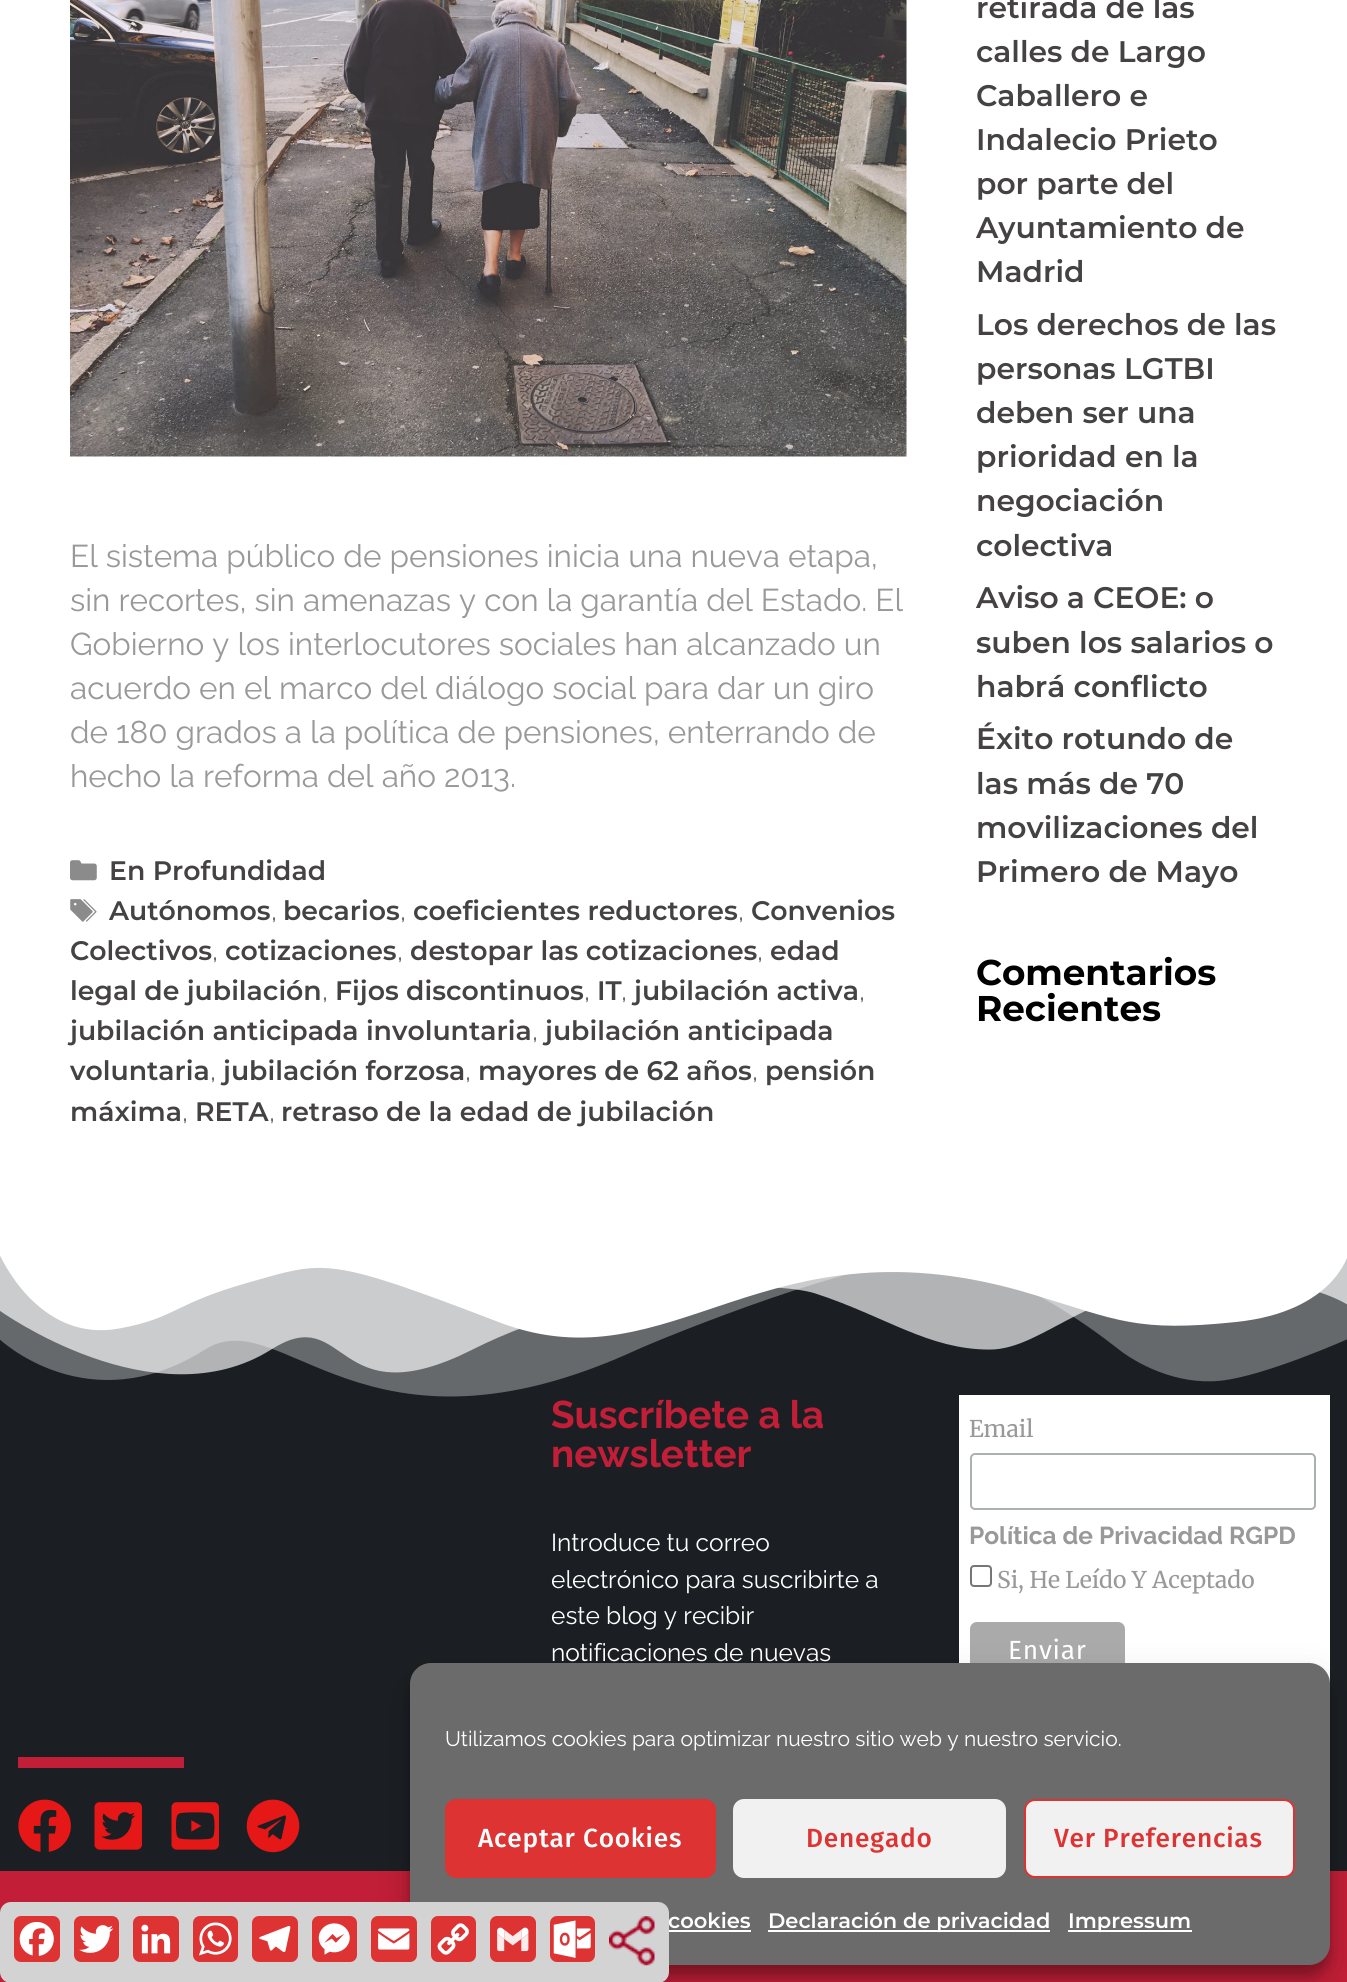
import math
import cairo


def use_color(cr, r, g, b):
  cr.set_source_rgb(r / 255, g / 255, b / 255)

def text(cr, x, y, s, family, size, color, bold=False, italic=False):
  cr.select_font_face(family, cairo.FONT_SLANT_ITALIC if italic else cairo.FONT_SLANT_NORMAL, cairo.FONT_WEIGHT_BOLD if bold else cairo.FONT_WEIGHT_NORMAL)
  cr.set_font_size(size)
  use_color(cr, *color)
  cr.move_to(x, y)
  cr.show_text(s)

def spaced_text(cr, x, y, s, letter, word):
  cr.move_to(x, y)
  for ch in s:
    cr.show_text(ch)
    cr.rel_move_to(letter + word * (ch == ' '), 0)

def box(cr, x, y, w, h, *color):
  use_color(cr, *color)
  cr.rectangle(x, y, w, h)
  cr.fill()

def round_rect(cr, x, y, w, h, r):
  cr.new_sub_path()
  for i, (u, v) in enumerate([(x + w - r, y + h - r), (x + r, y + h - r), (x + r, y + r), (x + w - r, y + r)]):
    cr.arc(u, v, r, i * math.pi / 2, (i + 1) * math.pi / 2)
  cr.close_path()

def shadow(cr, x, y, w, h, r, blur, alpha):
  cr.push_group_with_content(cairo.CONTENT_ALPHA)
  cr.set_operator(cairo.OPERATOR_SOURCE)
  for i in range(15, -16, -2):
    e = blur * i / 6
    if min(w, h) + 2 * e > 0:
      cr.set_source_rgba(0, 0, 0, alpha * math.erfc((i - 1) / 8.5) / 2)
      round_rect(cr, x - e, y - e, w + 2 * e, h + 2 * e, max(0, min(r + e + blur * .6, min(w, h) / 2 + e)))
      cr.fill()
  cr.mask(cr.pop_group())

def picture(cr, path, x, y, w, h):
  cr.save()
  cr.set_source_surface(cairo.ImageSurface.create_from_png(path), x, y)
  cr.rectangle(x, y, w, h)
  cr.fill()
  cr.restore()

def draw(cr):
  use_color(cr, 255, 255, 255)
  cr.paint()
  picture(cr, "img_01.png", 70, 0, 837, 457)
  picture(cr, "img_02.png", 70, 860, 27, 21)
  picture(cr, "img_03.png", 70, 899, 27, 23)
  box(cr, 0, 1255, 1347, 616, 27, 31, 35)
  box(cr, 959, 1395, 371, 289, 255, 255, 255)
  picture(cr, "img_04.png", 0, 1255, 1347, 142)
  round_rect(cr, 971, 1454, 344, 55, 4)
  use_color(cr, 171, 176, 178)
  cr.stroke()
  round_rect(cr, 971, 1566, 20, 20, 3)
  use_color(cr, 118, 118, 118)
  cr.stroke()
  use_color(cr, 170, 170, 170)
  round_rect(cr, 970, 1622, 155, 56, 7)
  cr.fill()
  box(cr, 18, 1757, 166, 11, 194, 30, 55)
  picture(cr, "img_05.png", 18, 1799, 53, 53)
  picture(cr, "img_06.png", 94, 1802, 48, 48)
  picture(cr, "img_07.png", 171, 1802, 48, 48)
  picture(cr, "img_08.png", 246, 1799, 54, 54)
  box(cr, 0, 1871, 1347, 111, 194, 30, 55)
  use_color(cr, 0, 0, 0)
  shadow(cr, 410, 1673, 920, 303, 21, 5, 0.23)
  shadow(cr, 410, 1680, 920, 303, 21, 17.5, 0.19)
  use_color(cr, 107, 107, 107)
  round_rect(cr, 410, 1663, 920, 302, 21)
  cr.fill()
  use_color(cr, 221, 51, 51)
  round_rect(cr, 446, 1800, 269, 77, 10)
  cr.fill_preserve()
  cr.stroke()
  use_color(cr, 241, 241, 241)
  round_rect(cr, 734, 1800, 271, 77, 10)
  cr.fill_preserve()
  cr.stroke()
  round_rect(cr, 1025, 1800, 269, 77, 10)
  cr.fill_preserve()
  use_color(cr, 221, 51, 51)
  cr.stroke()
  box(cr, 669, 1930, 82, 2, 255, 255, 255)
  box(cr, 768, 1930, 282, 2, 255, 255, 255)
  box(cr, 1068, 1930, 124, 2, 255, 255, 255)
  text(cr, 70, 567, "El sistema público de pensiones inicia una nueva etapa,", "Raleway", 31.5, (153, 153, 153))
  text(cr, 70, 611, "sin recortes, sin amenazas y con la garantía del Estado. El", "Raleway", 31.5, (153, 153, 153))
  text(cr, 70, 655, "Gobierno y los interlocutores sociales han alcanzado un", "Raleway", 31.5, (153, 153, 153))
  text(cr, 70, 699, "acuerdo en el marco del diálogo social para dar un giro", "Raleway", 31.5, (153, 153, 153))
  text(cr, 70, 743, "de 180 grados a la política de pensiones, enterrando de", "Raleway", 31.5, (153, 153, 153))
  text(cr, 70, 787, "hecho la reforma del año 2013.", "Raleway", 31.5, (153, 153, 153))
  text(cr, 109, 880, "En Profundidad", "Montserrat SemiBold", 26.75, (68, 66, 66))
  text(cr, 109, 920, "Autónomos", "Montserrat SemiBold", 26.75, (68, 66, 66))
  text(cr, 271, 920, ",", "Raleway", 26.75, (89, 89, 89))
  text(cr, 283, 920, "becarios", "Montserrat SemiBold", 26.75, (68, 66, 66))
  text(cr, 400, 920, ",", "Raleway", 26.75, (89, 89, 89))
  text(cr, 413, 920, "coeficientes reductores", "Montserrat SemiBold", 26.75, (68, 66, 66))
  text(cr, 738, 920, ",", "Raleway", 26.75, (89, 89, 89))
  text(cr, 751, 920, "Convenios", "Montserrat SemiBold", 26.75, (68, 66, 66))
  text(cr, 70, 960, "Colectivos", "Montserrat SemiBold", 26.75, (68, 66, 66))
  text(cr, 212, 960, ",", "Raleway", 26.75, (89, 89, 89))
  text(cr, 225, 960, "cotizaciones", "Montserrat SemiBold", 26.75, (68, 66, 66))
  text(cr, 397, 960, ",", "Raleway", 26.75, (89, 89, 89))
  text(cr, 410, 960, "destopar las cotizaciones", "Montserrat SemiBold", 26.75, (68, 66, 66))
  text(cr, 757, 960, ",", "Raleway", 26.75, (89, 89, 89))
  text(cr, 770, 960, "edad", "Montserrat SemiBold", 26.75, (68, 66, 66))
  text(cr, 70, 1000, "legal de jubilación", "Montserrat SemiBold", 26.75, (68, 66, 66))
  text(cr, 322, 1000, ",", "Raleway", 26.75, (89, 89, 89))
  text(cr, 335, 1000, "Fijos discontinuos", "Montserrat SemiBold", 26.75, (68, 66, 66))
  text(cr, 584, 1000, ",", "Raleway", 26.75, (89, 89, 89))
  text(cr, 597, 1000, "IT", "Montserrat SemiBold", 26.75, (68, 66, 66))
  text(cr, 621, 1000, ",", "Raleway", 26.75, (89, 89, 89))
  text(cr, 634, 1000, "jubilación activa", "Montserrat SemiBold", 26.75, (68, 66, 66))
  text(cr, 859, 1000, ",", "Raleway", 26.75, (89, 89, 89))
  text(cr, 70, 1040, "jubilación anticipada involuntaria", "Montserrat SemiBold", 26.75, (68, 66, 66))
  text(cr, 532, 1040, ",", "Raleway", 26.75, (89, 89, 89))
  text(cr, 545, 1040, "jubilación anticipada", "Montserrat SemiBold", 26.75, (68, 66, 66))
  text(cr, 70, 1080, "voluntaria", "Montserrat SemiBold", 26.75, (68, 66, 66))
  text(cr, 210, 1080, ",", "Raleway", 26.75, (89, 89, 89))
  text(cr, 223, 1080, "jubilación forzosa", "Montserrat SemiBold", 26.75, (68, 66, 66))
  text(cr, 465, 1080, ",", "Raleway", 26.75, (89, 89, 89))
  text(cr, 478, 1080, "mayores de 62 años", "Montserrat SemiBold", 26.75, (68, 66, 66))
  text(cr, 752, 1080, ",", "Raleway", 26.75, (89, 89, 89))
  text(cr, 765, 1080, "pensión", "Montserrat SemiBold", 26.75, (68, 66, 66))
  text(cr, 70, 1121, "máxima", "Montserrat SemiBold", 26.75, (68, 66, 66))
  text(cr, 182, 1121, ",", "Raleway", 26.75, (89, 89, 89))
  text(cr, 195, 1121, "RETA", "Montserrat SemiBold", 26.75, (68, 66, 66))
  text(cr, 269, 1121, ",", "Raleway", 26.75, (89, 89, 89))
  text(cr, 281, 1121, "retraso de la edad de jubilación", "Montserrat SemiBold", 26.75, (68, 66, 66))
  text(cr, 976, 18, "retirada de las", "Montserrat SemiBold", 29.75, (68, 66, 66))
  text(cr, 976, 62, "calles de Largo", "Montserrat SemiBold", 29.75, (68, 66, 66))
  text(cr, 976, 106, "Caballero e", "Montserrat SemiBold", 29.75, (68, 66, 66))
  text(cr, 976, 150, "Indalecio Prieto", "Montserrat SemiBold", 29.75, (68, 66, 66))
  text(cr, 976, 194, "por parte del", "Montserrat SemiBold", 29.75, (68, 66, 66))
  text(cr, 976, 238, "Ayuntamiento de", "Montserrat SemiBold", 29.75, (68, 66, 66))
  text(cr, 976, 282, "Madrid", "Montserrat SemiBold", 29.75, (68, 66, 66))
  text(cr, 976, 335, "Los derechos de las", "Montserrat SemiBold", 29.75, (68, 66, 66))
  text(cr, 976, 379, "personas LGTBI", "Montserrat SemiBold", 29.75, (68, 66, 66))
  text(cr, 976, 423, "deben ser una", "Montserrat SemiBold", 29.75, (68, 66, 66))
  text(cr, 976, 467, "prioridad en la", "Montserrat SemiBold", 29.75, (68, 66, 66))
  text(cr, 976, 511, "negociación", "Montserrat SemiBold", 29.75, (68, 66, 66))
  text(cr, 976, 556, "colectiva", "Montserrat SemiBold", 29.75, (68, 66, 66))
  text(cr, 976, 608, "Aviso a CEOE: o", "Montserrat SemiBold", 29.75, (68, 66, 66))
  text(cr, 976, 653, "suben los salarios o", "Montserrat SemiBold", 29.75, (68, 66, 66))
  text(cr, 976, 697, "habrá conflicto", "Montserrat SemiBold", 29.75, (68, 66, 66))
  text(cr, 976, 749, "Éxito rotundo de", "Montserrat SemiBold", 29.75, (68, 66, 66))
  text(cr, 976, 794, "las más de 70", "Montserrat SemiBold", 29.75, (68, 66, 66))
  text(cr, 976, 838, "movilizaciones del", "Montserrat SemiBold", 29.75, (68, 66, 66))
  text(cr, 976, 882, "Primero de Mayo", "Montserrat SemiBold", 29.75, (68, 66, 66))
  text(cr, 976, 985, "Comentarios", "Montserrat", 35.75, (0, 0, 0), bold=True)
  text(cr, 976, 1021, "Recientes", "Montserrat", 35.75, (0, 0, 0), bold=True)
  text(cr, 551, 1428, "Suscríbete a la", "Raleway", 38.5, (194, 30, 55), bold=True)
  text(cr, 551, 1467, "newsletter", "Raleway", 38.5, (194, 30, 55), bold=True)
  text(cr, 551, 1551, "Introduce tu correo", "Raleway", 24.5, (255, 255, 255))
  text(cr, 551, 1588, "electrónico para suscribirte a", "Raleway", 24.5, (255, 255, 255))
  text(cr, 551, 1624, "este blog y recibir", "Raleway", 24.5, (255, 255, 255))
  text(cr, 551, 1661, "notificaciones de nuevas", "Raleway", 24.5, (255, 255, 255))
  text(cr, 969, 1437, "Email", "Merriweather", 23, (153, 153, 153))
  text(cr, 969, 1544, "Política de Privacidad RGPD", "Raleway", 24.5, (153, 153, 153), bold=True)
  text(cr, 997, 1588, "Si, He Leído Y Aceptado", "Merriweather", 23, (153, 153, 153))
  cr.select_font_face("Fira Sans")
  cr.set_font_size(26.25)
  use_color(cr, 255, 255, 255)
  spaced_text(cr, 1008, 1659, "Enviar", 0.75, 0)
  text(cr, 445, 1746, "Utilizamos cookies para optimizar nuestro sitio web y nuestro servicio.", "Raleway", 21, (255, 255, 255))
  cr.select_font_face("Fira Sans Medium")
  cr.set_font_size(26.25)
  spaced_text(cr, 478, 1847, "Aceptar Cookies", 0.75, 0)
  use_color(cr, 221, 51, 51)
  spaced_text(cr, 806, 1847, "Denegado", 0.75, 0)
  spaced_text(cr, 1054, 1847, "Ver Preferencias", 0.75, 0)
  text(cr, 668, 1928, "cookies", "Montserrat SemiBold", 21, (255, 255, 255))
  text(cr, 768, 1928, "Declaración de privacidad", "Montserrat SemiBold", 21, (255, 255, 255))
  text(cr, 1068, 1928, "Impressum", "Montserrat SemiBold", 21, (255, 255, 255))
  use_color(cr, 211, 211, 211)
  round_rect(cr, 0, 1902, 669, 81, 11)
  cr.fill()
  use_color(cr, 221, 51, 51)
  round_rect(cr, 14, 1916, 46, 46, 7)
  cr.fill()
  picture(cr, "img_09.png", 19, 1921, 35, 35)
  round_rect(cr, 74, 1916, 45, 46, 7)
  cr.fill()
  picture(cr, "img_10.png", 79, 1925, 35, 28)
  round_rect(cr, 133, 1916, 46, 46, 7)
  cr.fill()
  picture(cr, "img_11.png", 141, 1924, 30, 30)
  round_rect(cr, 193, 1916, 45, 46, 7)
  cr.fill()
  picture(cr, "img_12.png", 199, 1922, 33, 34)
  round_rect(cr, 252, 1916, 46, 46, 7)
  cr.fill()
  picture(cr, "img_13.png", 259, 1925, 32, 28)
  round_rect(cr, 312, 1916, 45, 46, 7)
  cr.fill()
  picture(cr, "img_14.png", 318, 1923, 32, 32)
  round_rect(cr, 371, 1916, 46, 46, 7)
  cr.fill()
  picture(cr, "img_15.png", 378, 1928, 32, 22)
  round_rect(cr, 431, 1916, 45, 46, 7)
  cr.fill()
  picture(cr, "img_16.png", 437, 1923, 32, 32)
  round_rect(cr, 490, 1916, 46, 46, 7)
  cr.fill()
  picture(cr, "img_17.png", 497, 1927, 32, 25)
  round_rect(cr, 550, 1916, 45, 46, 7)
  cr.fill()
  picture(cr, "img_18.png", 553, 1920, 38, 38)
  picture(cr, "img_19.png", 609, 1916, 46, 50)


surface = cairo.ImageSurface(cairo.FORMAT_RGB24, 1347, 1982)
cr = cairo.Context(surface)
options = cairo.FontOptions()
options.set_hint_metrics(cairo.HINT_METRICS_OFF)
options.set_hint_style(cairo.HINT_STYLE_NONE)
cr.set_font_options(options)
cr.set_miter_limit(4)
draw(cr)
surface.write_to_png("out.png")
